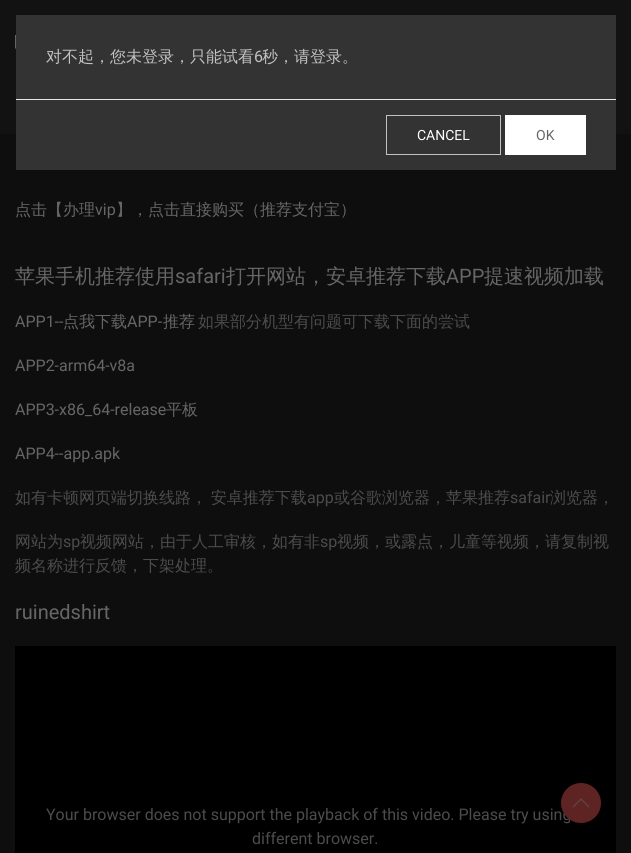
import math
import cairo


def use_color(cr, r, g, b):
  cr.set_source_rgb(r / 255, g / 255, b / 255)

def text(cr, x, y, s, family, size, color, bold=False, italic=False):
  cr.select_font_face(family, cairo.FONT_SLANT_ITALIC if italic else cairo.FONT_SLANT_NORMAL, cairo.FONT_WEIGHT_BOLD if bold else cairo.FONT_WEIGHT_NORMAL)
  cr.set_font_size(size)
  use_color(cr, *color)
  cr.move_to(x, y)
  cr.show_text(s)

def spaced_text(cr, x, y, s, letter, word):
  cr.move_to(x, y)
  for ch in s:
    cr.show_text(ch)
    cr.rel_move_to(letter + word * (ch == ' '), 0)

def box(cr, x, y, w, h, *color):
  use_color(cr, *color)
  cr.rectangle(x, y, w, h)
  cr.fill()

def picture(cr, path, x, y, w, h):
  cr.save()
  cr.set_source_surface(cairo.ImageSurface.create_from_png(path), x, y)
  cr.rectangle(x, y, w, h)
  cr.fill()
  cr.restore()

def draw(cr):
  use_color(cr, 14, 14, 14)
  cr.paint()
  box(cr, 0, 0, 631, 134, 18, 18, 18)
  picture(cr, "img_01.png", 15, 34, 1, 15)
  box(cr, 16, 15, 600, 84, 51, 51, 51)
  box(cr, 16, 100, 600, 70, 51, 51, 51)
  box(cr, 16, 99, 600, 1, 229, 229, 229)
  cr.rectangle(386.5, 115.5, 114, 39)
  use_color(cr, 194, 194, 194)
  cr.set_line_width(1)
  cr.stroke()
  box(cr, 505, 115, 81, 40, 255, 255, 255)
  box(cr, 15, 646, 601, 207, 0, 0, 0)
  text(cr, 46, 62, "对不起，您未登录，只能试看", "WenQuanYi Zen Hei Medium", 16, (194, 194, 194))
  text(cr, 254, 62, "6", "Roboto", 16, (194, 194, 194))
  text(cr, 262, 62, "秒，请登录。", "WenQuanYi Zen Hei Medium", 16, (194, 194, 194))
  text(cr, 417, 140, "CANCEL", "Roboto", 14, (255, 255, 255))
  text(cr, 536, 140, "OK", "Roboto", 14, (102, 102, 102))
  text(cr, 15, 215, "点击【办理", "WenQuanYi Zen Hei Medium", 16, (102, 102, 102))
  text(cr, 95, 215, "vip", "Roboto", 16, (102, 102, 102))
  text(cr, 116, 215, "】，点击直接购买（推荐支付宝）", "WenQuanYi Zen Hei Medium", 16, (102, 102, 102))
  text(cr, 15, 283, "苹果手机推荐使用", "WenQuanYi Zen Hei Medium", 20, (102, 102, 102))
  text(cr, 175, 283, "safari", "Roboto", 20, (102, 102, 102))
  text(cr, 226, 283, "打开网站，安卓推荐下载", "WenQuanYi Zen Hei Medium", 20, (102, 102, 102))
  text(cr, 446, 283, "APP", "Roboto", 20, (102, 102, 102))
  text(cr, 484, 283, "提速视频加载", "WenQuanYi Zen Hei Medium", 20, (102, 102, 102))
  text(cr, 15, 327, "APP1--", "Roboto", 16, (102, 102, 102))
  text(cr, 63, 327, "点我下载", "WenQuanYi Zen Hei Medium", 16, (102, 102, 102))
  text(cr, 127, 327, "APP-", "Roboto", 16, (102, 102, 102))
  text(cr, 163, 327, "推荐", "WenQuanYi Zen Hei Medium", 16, (102, 102, 102))
  text(cr, 198, 327, "如果部分机型有问题可下载下面的尝试", "WenQuanYi Zen Hei Medium", 16, (76, 76, 76))
  text(cr, 15, 371, "APP2-arm64-v8a", "Roboto", 16, (102, 102, 102))
  text(cr, 15, 415, "APP3-x86_64-release", "Roboto", 16, (102, 102, 102))
  text(cr, 166, 415, "平板", "WenQuanYi Zen Hei Medium", 16, (102, 102, 102))
  text(cr, 15, 459, "APP4--app.apk", "Roboto", 16, (102, 102, 102))
  cr.select_font_face("WenQuanYi Zen Hei Medium")
  use_color(cr, 76, 76, 76)
  spaced_text(cr, 15, 503, "如有卡顿网页端切换线路， 安卓推荐下载", 0, -1)
  text(cr, 307, 503, "app", "Roboto", 16, (76, 76, 76))
  text(cr, 334, 503, "或谷歌浏览器，苹果推荐", "WenQuanYi Zen Hei Medium", 16, (76, 76, 76))
  text(cr, 510, 503, "safair", "Roboto", 16, (76, 76, 76))
  text(cr, 550, 503, "浏览器，", "WenQuanYi Zen Hei Medium", 16, (76, 76, 76))
  text(cr, 15, 547, "网站为", "WenQuanYi Zen Hei Medium", 16, (76, 76, 76))
  text(cr, 63, 547, "sp", "Roboto", 16, (76, 76, 76))
  text(cr, 80, 547, "视频网站，由于人工审核，如有非", "WenQuanYi Zen Hei Medium", 16, (76, 76, 76))
  text(cr, 320, 547, "sp", "Roboto", 16, (76, 76, 76))
  text(cr, 337, 547, "视频，或露点，儿童等视频，请复制视", "WenQuanYi Zen Hei Medium", 16, (76, 76, 76))
  text(cr, 15, 571, "频名称进行反馈，下架处理。", "WenQuanYi Zen Hei Medium", 16, (76, 76, 76))
  text(cr, 15, 619, "ruinedshirt", "Roboto", 20, (102, 102, 102))
  text(cr, 46, 820, "Your browser does not support the playback of this video. Please try using", "Roboto", 16, (76, 76, 76))
  text(cr, 252, 844, "different browser.", "Roboto", 16, (76, 76, 76))
  use_color(cr, 94, 36, 36)
  cr.new_path()
  cr.arc(581, 803, 20, 0, 2 * math.pi)
  cr.fill()
  cr.new_path()
  cr.move_to(573, 807)
  cr.line_to(581, 799)
  cr.line_to(589, 807)
  use_color(cr, 98, 69, 69)
  cr.set_line_width(1.2)
  cr.stroke()


surface = cairo.ImageSurface(cairo.FORMAT_RGB24, 631, 853)
cr = cairo.Context(surface)
options = cairo.FontOptions()
options.set_hint_metrics(cairo.HINT_METRICS_OFF)
options.set_hint_style(cairo.HINT_STYLE_NONE)
cr.set_font_options(options)
cr.set_miter_limit(4)
draw(cr)
surface.write_to_png("out.png")
